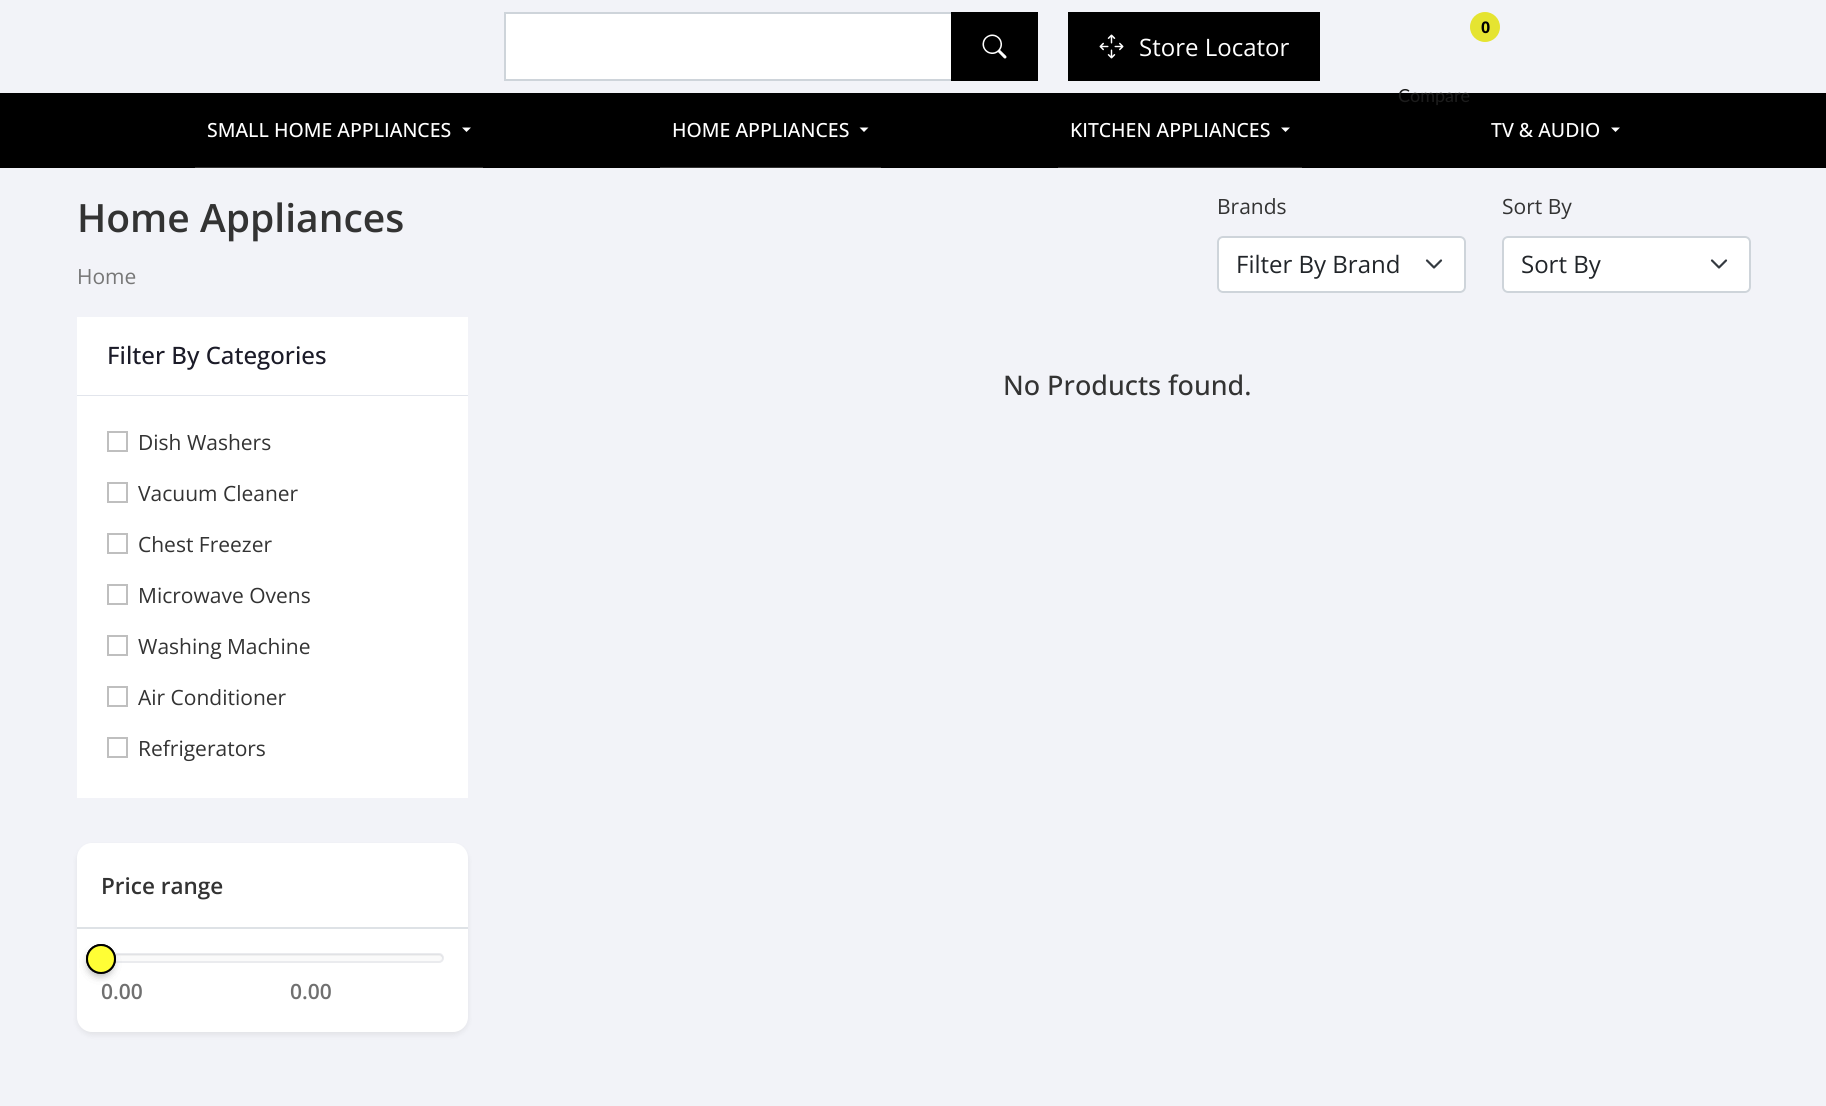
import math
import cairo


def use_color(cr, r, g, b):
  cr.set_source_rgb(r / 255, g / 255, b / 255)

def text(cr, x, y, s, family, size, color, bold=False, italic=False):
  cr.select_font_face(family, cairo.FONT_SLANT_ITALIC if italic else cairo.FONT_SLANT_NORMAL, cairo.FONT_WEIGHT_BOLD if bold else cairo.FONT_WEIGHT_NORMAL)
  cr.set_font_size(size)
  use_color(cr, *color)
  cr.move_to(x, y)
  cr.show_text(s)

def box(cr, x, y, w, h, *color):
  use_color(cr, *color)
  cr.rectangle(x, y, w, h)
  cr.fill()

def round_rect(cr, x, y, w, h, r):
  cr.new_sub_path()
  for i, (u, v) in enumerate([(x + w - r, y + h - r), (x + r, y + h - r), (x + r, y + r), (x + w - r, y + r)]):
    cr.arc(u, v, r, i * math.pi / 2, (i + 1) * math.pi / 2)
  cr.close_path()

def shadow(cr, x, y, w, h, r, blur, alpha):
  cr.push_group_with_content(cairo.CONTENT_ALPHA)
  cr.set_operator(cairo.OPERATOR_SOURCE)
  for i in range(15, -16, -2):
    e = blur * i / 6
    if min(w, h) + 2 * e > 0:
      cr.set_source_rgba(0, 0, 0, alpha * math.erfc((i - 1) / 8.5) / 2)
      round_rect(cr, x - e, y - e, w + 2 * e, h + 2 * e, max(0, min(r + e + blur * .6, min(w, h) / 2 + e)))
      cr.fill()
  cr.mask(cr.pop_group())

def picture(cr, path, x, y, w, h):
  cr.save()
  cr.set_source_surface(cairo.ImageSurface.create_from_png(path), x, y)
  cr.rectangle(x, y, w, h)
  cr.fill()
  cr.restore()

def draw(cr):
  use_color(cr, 242, 243, 248)
  cr.paint()
  box(cr, 1058, 168, 244, 1, 245, 245, 249)
  box(cr, 660, 168, 221, 1, 245, 245, 249)
  box(cr, 195, 168, 288, 1, 245, 245, 249)
  use_color(cr, 255, 255, 255)
  cr.rectangle(505, 13, 447, 67)
  cr.fill_preserve()
  use_color(cr, 206, 212, 218)
  cr.stroke()
  box(cr, 951, 12, 87, 69, 0, 0, 0)
  picture(cr, "img_01.png", 982, 34, 25, 25)
  box(cr, 1068, 12, 252, 69, 0, 0, 0)
  picture(cr, "img_02.png", 1099, 34, 25, 25)
  use_color(cr, 229, 228, 49)
  cr.arc(1485, 27, 15, 0, 2 * math.pi)
  cr.fill()
  box(cr, 0, 93, 1826, 75, 0, 0, 0)
  box(cr, 1058, 167, 244, 1, 51, 51, 51)
  box(cr, 660, 167, 221, 1, 51, 51, 51)
  box(cr, 195, 167, 288, 1, 51, 51, 51)
  use_color(cr, 255, 255, 255)
  cr.new_path()
  cr.move_to(462, 127.5)
  cr.line_to(471, 127.5)
  cr.line_to(466.5, 132)
  cr.close_path()
  cr.fill()
  cr.new_path()
  cr.move_to(859.5, 127.5)
  cr.line_to(868.5, 127.5)
  cr.line_to(864, 132)
  cr.close_path()
  cr.fill()
  cr.new_path()
  cr.move_to(1281, 127.5)
  cr.line_to(1290, 127.5)
  cr.line_to(1285.5, 132)
  cr.close_path()
  cr.fill()
  cr.new_path()
  cr.move_to(1611, 127.5)
  cr.line_to(1620, 127.5)
  cr.line_to(1615.5, 132)
  cr.close_path()
  cr.fill()
  round_rect(cr, 1217, 236, 249, 57, 6)
  cr.fill()
  cr.new_path()
  cr.move_to(1427, 260.5)
  cr.line_to(1434, 267.5)
  cr.line_to(1441, 260.5)
  use_color(cr, 52, 58, 64)
  cr.set_line_width(2.2)
  cr.set_line_cap(cairo.LINE_CAP_ROUND)
  cr.set_line_join(cairo.LINE_JOIN_ROUND)
  cr.stroke()
  round_rect(cr, 1218, 237, 247, 55, 5)
  use_color(cr, 206, 212, 218)
  cr.set_line_width(2)
  cr.set_line_cap(cairo.LINE_CAP_BUTT)
  cr.set_line_join(cairo.LINE_JOIN_MITER)
  cr.stroke()
  use_color(cr, 255, 255, 255)
  round_rect(cr, 1502, 236, 249, 57, 6)
  cr.fill()
  cr.new_path()
  cr.move_to(1712, 260.5)
  cr.line_to(1719, 267.5)
  cr.line_to(1726, 260.5)
  use_color(cr, 52, 58, 64)
  cr.set_line_width(2.2)
  cr.set_line_cap(cairo.LINE_CAP_ROUND)
  cr.set_line_join(cairo.LINE_JOIN_ROUND)
  cr.stroke()
  round_rect(cr, 1503, 237, 247, 55, 5)
  use_color(cr, 206, 212, 218)
  cr.set_line_width(2)
  cr.set_line_cap(cairo.LINE_CAP_BUTT)
  cr.set_line_join(cairo.LINE_JOIN_MITER)
  cr.stroke()
  box(cr, 77, 317, 391, 78, 255, 255, 255)
  box(cr, 77, 395, 391, 1, 226, 229, 236)
  box(cr, 77, 396, 391, 402, 255, 255, 255)
  cr.rectangle(108, 432, 19, 19)
  use_color(cr, 191, 191, 191)
  cr.stroke()
  cr.rectangle(108, 483, 19, 19)
  cr.stroke()
  cr.rectangle(108, 534, 19, 19)
  cr.stroke()
  cr.rectangle(108, 585, 19, 19)
  cr.stroke()
  cr.rectangle(108, 636, 19, 19)
  cr.stroke()
  cr.rectangle(108, 687, 19, 19)
  cr.stroke()
  cr.rectangle(108, 738, 19, 19)
  cr.stroke()
  use_color(cr, 0, 0, 0)
  shadow(cr, 77, 846, 391, 189, 15, 3, 0.07)
  use_color(cr, 255, 255, 255)
  round_rect(cr, 77, 843, 391, 189, 15)
  cr.fill()
  box(cr, 77, 927, 391, 2, 222, 226, 230)
  use_color(cr, 250, 250, 250)
  round_rect(cr, 101, 953, 343, 10, 5)
  cr.fill()
  use_color(cr, 240, 240, 240)
  cr.new_path()
  cr.move_to(106, 956)
  cr.line_to(440, 956)
  cr.curve_to(442, 957, 443, 958, 442, 960)
  cr.curve_to(444, 957, 442, 954, 439, 954)
  cr.line_to(106, 954)
  cr.line_to(103, 956)
  cr.curve_to(102, 957, 102, 958, 102, 959)
  cr.curve_to(102, 958, 104, 956, 106, 956)
  cr.close_path()
  cr.fill()
  round_rect(cr, 102, 954, 341, 8, 4)
  cr.set_source_rgba(0.561, 0.592, 0.671, 0.15)
  cr.stroke()
  use_color(cr, 187, 187, 187)
  shadow(cr, 90, 953, 21, 21, 10.5, 4.5, 1)
  cr.arc(101, 959, 14, 0, 2 * math.pi)
  use_color(cr, 0, 0, 0)
  cr.stroke()
  use_color(cr, 187, 187, 187)
  shadow(cr, 90, 953, 21, 21, 10.5, 4.5, 1)
  use_color(cr, 255, 254, 53)
  cr.arc(101, 959, 14, 0, 2 * math.pi)
  cr.fill_preserve()
  use_color(cr, 0, 0, 0)
  cr.stroke()
  text(cr, 1139, 56, "Store Locator", "Open Sans", 24, (255, 255, 255))
  text(cr, 1481, 33, "0", "Open Sans", 16, (0, 0, 0), bold=True)
  text(cr, 1398, 102, "Compare", "Lato", 18, (28, 28, 28))
  text(cr, 207, 137, "SMALL HOME APPLIANCES", "Open Sans Medium", 19.5, (255, 255, 255))
  text(cr, 672, 137, "HOME APPLIANCES", "Open Sans Medium", 19.5, (255, 255, 255))
  text(cr, 1070, 137, "KITCHEN APPLIANCES", "Open Sans Medium", 19.5, (255, 255, 255))
  text(cr, 1491, 137, "TV & AUDIO", "Open Sans Medium", 19.5, (255, 255, 255))
  text(cr, 77, 232, "Home Appliances", "Open Sans SemiBold", 39, (51, 51, 51))
  text(cr, 77, 284, "Home", "Open Sans", 21, (119, 119, 119))
  text(cr, 1217, 214, "Brands", "Open Sans", 21, (51, 51, 51))
  text(cr, 1236, 273, "Filter By Brand", "Open Sans", 24, (33, 37, 41))
  text(cr, 1502, 214, "Sort By", "Open Sans", 21, (51, 51, 51))
  text(cr, 1521, 273, "Sort By", "Open Sans", 24, (33, 37, 41))
  text(cr, 107, 364, "Filter By Categories", "Open Sans Medium", 24, (27, 27, 40))
  text(cr, 138, 450, "Dish Washers", "Open Sans", 21, (51, 51, 51))
  text(cr, 138, 501, "Vacuum Cleaner", "Open Sans", 21, (51, 51, 51))
  text(cr, 138, 552, "Chest Freezer", "Open Sans", 21, (51, 51, 51))
  text(cr, 138, 603, "Microwave Ovens", "Open Sans", 21, (51, 51, 51))
  text(cr, 138, 654, "Washing Machine", "Open Sans", 21, (51, 51, 51))
  text(cr, 138, 705, "Air Conditioner", "Open Sans", 21, (51, 51, 51))
  text(cr, 138, 756, "Refrigerators", "Open Sans", 21, (51, 51, 51))
  text(cr, 101, 894, "Price range", "Open Sans SemiBold", 22.5, (51, 51, 51))
  text(cr, 101, 999, "0.00", "Open Sans SemiBold", 21, (112, 112, 112))
  text(cr, 290, 999, "0.00", "Open Sans SemiBold", 21, (112, 112, 112))
  text(cr, 1003, 395, "No Products found.", "Open Sans Medium", 27, (51, 51, 51))


surface = cairo.ImageSurface(cairo.FORMAT_RGB24, 1826, 1106)
cr = cairo.Context(surface)
options = cairo.FontOptions()
options.set_hint_metrics(cairo.HINT_METRICS_OFF)
options.set_hint_style(cairo.HINT_STYLE_NONE)
cr.set_font_options(options)
cr.set_miter_limit(4)
draw(cr)
surface.write_to_png("out.png")
